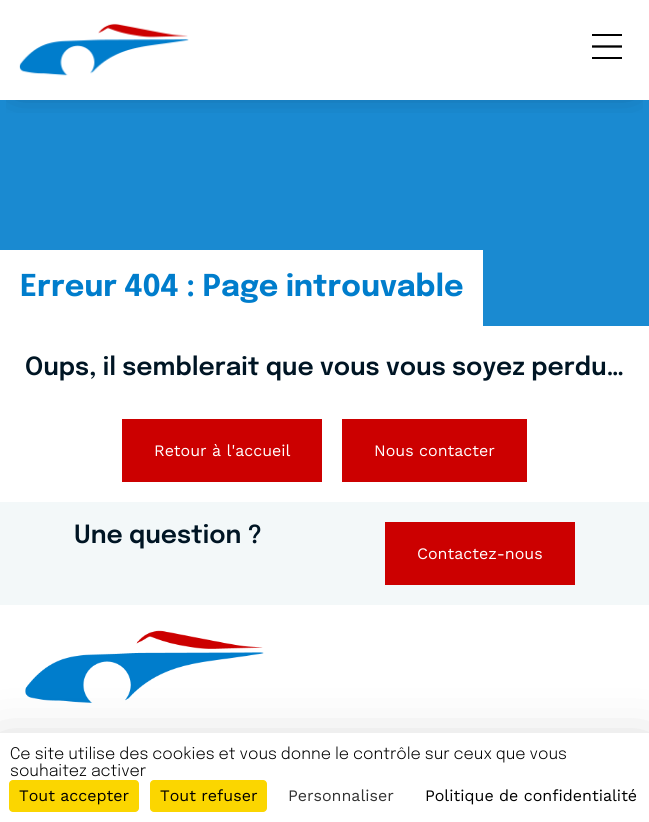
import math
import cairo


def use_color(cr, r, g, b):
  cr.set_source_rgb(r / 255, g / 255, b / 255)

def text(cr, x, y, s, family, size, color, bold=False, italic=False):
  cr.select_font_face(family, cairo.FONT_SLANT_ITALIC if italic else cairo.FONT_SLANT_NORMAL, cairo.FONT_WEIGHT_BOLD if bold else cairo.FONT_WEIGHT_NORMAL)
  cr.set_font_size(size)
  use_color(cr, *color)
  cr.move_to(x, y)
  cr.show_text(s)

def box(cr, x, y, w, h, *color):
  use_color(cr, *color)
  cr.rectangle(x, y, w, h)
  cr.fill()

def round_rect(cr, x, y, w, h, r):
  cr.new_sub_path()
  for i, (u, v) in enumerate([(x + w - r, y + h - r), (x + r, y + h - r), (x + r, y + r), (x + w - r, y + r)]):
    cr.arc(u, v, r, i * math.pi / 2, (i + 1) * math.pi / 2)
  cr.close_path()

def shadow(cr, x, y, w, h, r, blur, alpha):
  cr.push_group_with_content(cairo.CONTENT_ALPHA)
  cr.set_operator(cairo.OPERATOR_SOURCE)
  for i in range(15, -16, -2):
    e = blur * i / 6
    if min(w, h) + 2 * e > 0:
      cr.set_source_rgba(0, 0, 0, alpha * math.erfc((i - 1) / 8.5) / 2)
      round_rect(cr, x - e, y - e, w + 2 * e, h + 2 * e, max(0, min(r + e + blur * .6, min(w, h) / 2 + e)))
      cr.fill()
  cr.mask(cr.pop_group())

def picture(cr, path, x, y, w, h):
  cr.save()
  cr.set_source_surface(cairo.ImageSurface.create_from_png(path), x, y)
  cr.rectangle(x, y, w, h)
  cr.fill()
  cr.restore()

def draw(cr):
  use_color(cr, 255, 255, 255)
  cr.paint()
  box(cr, 0, 100, 649, 226, 26, 138, 209)
  cr.save()
  cr.rectangle(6, 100, 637, 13)
  cr.clip()
  use_color(cr, 0, 0, 0)
  shadow(cr, 17, 17, 615, 66, 0, 17, 0.5)
  cr.restore()
  picture(cr, "img_01.png", 19, 23, 170, 53)
  box(cr, 592, 34, 30, 2, 0, 0, 0)
  cr.new_path()
  cr.move_to(592, 46.5)
  cr.line_to(622, 46.5)
  cr.set_line_width(2.3)
  cr.stroke()
  box(cr, 592, 57, 30, 2, 0, 0, 0)
  box(cr, 0, 250, 483, 76, 255, 255, 255)
  box(cr, 122, 419, 200, 63, 204, 0, 0)
  box(cr, 342, 419, 185, 63, 204, 0, 0)
  box(cr, 0, 502, 649, 103, 243, 248, 249)
  box(cr, 385, 522, 190, 63, 204, 0, 0)
  picture(cr, "img_02.png", 25, 630, 239, 73)
  use_color(cr, 0, 0, 0)
  shadow(cr, 0, 753, 649, 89, 0, 30, 0.25)
  box(cr, 0, 733, 649, 89, 255, 255, 255)
  use_color(cr, 251, 214, 0)
  round_rect(cr, 9, 780, 130, 32, 4)
  cr.fill()
  round_rect(cr, 150, 780, 117, 32, 4)
  cr.fill()
  text(cr, 20, 296, "Erreur 404 : Page introuvable", "Epilogue", 30, (0, 125, 204), bold=True)
  text(cr, 25, 375, "Oups, il semblerait que vous vous soyez perdu…", "Epilogue SemiBold", 25, (0, 21, 36))
  text(cr, 154, 456, "Retour à l'accueil", "Work Sans", 16, (255, 255, 255))
  text(cr, 374, 456, "Nous contacter", "Work Sans", 16, (255, 255, 255))
  text(cr, 74, 543, "Une question ?", "Epilogue SemiBold", 25, (0, 21, 36))
  text(cr, 417, 559, "Contactez-nous", "Work Sans", 16, (255, 255, 255))
  text(cr, 10, 759, "Ce site utilise des cookies et vous donne le contrôle sur ceux que vous", "Epilogue Light", 16, (0, 0, 0))
  text(cr, 10, 776, "souhaitez activer", "Epilogue Light", 16, (0, 0, 0))
  text(cr, 19, 801, "Tout accepter", "Work Sans", 16, (0, 0, 0))
  text(cr, 160, 801, "Tout refuser", "Work Sans", 16, (0, 0, 0))
  text(cr, 288, 801, "Personnaliser", "Work Sans", 16, (51, 51, 51))
  text(cr, 425, 801, "Politique de confidentialité", "Work Sans", 16, (0, 0, 0))


surface = cairo.ImageSurface(cairo.FORMAT_RGB24, 649, 822)
cr = cairo.Context(surface)
options = cairo.FontOptions()
options.set_hint_metrics(cairo.HINT_METRICS_OFF)
options.set_hint_style(cairo.HINT_STYLE_NONE)
cr.set_font_options(options)
cr.set_miter_limit(4)
draw(cr)
surface.write_to_png("out.png")
